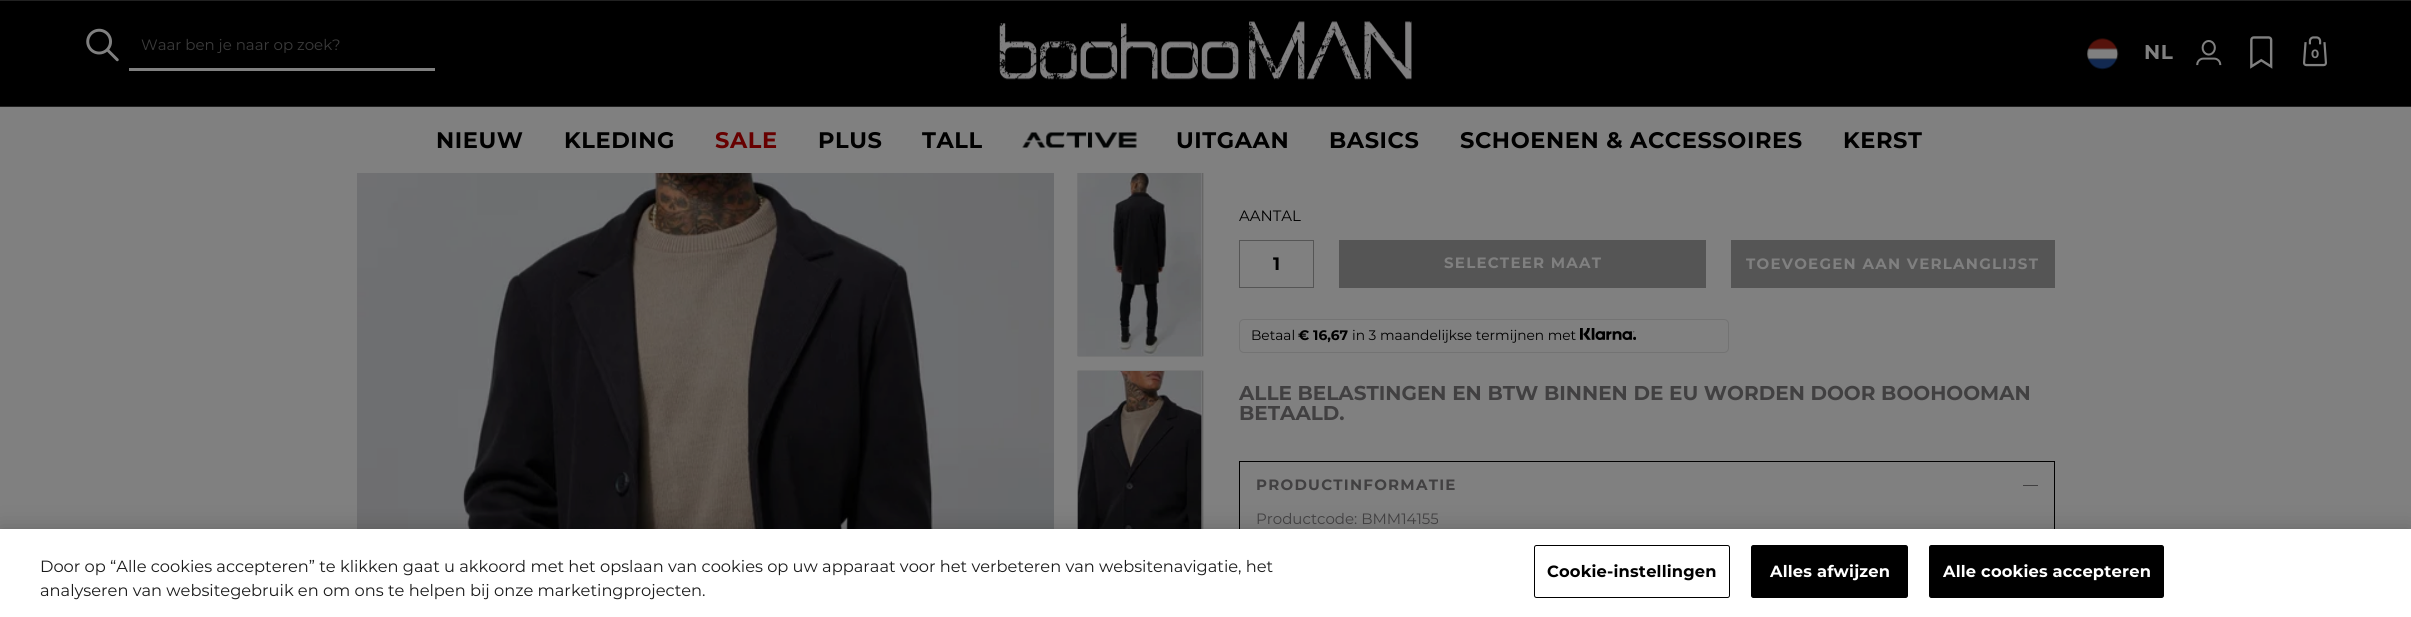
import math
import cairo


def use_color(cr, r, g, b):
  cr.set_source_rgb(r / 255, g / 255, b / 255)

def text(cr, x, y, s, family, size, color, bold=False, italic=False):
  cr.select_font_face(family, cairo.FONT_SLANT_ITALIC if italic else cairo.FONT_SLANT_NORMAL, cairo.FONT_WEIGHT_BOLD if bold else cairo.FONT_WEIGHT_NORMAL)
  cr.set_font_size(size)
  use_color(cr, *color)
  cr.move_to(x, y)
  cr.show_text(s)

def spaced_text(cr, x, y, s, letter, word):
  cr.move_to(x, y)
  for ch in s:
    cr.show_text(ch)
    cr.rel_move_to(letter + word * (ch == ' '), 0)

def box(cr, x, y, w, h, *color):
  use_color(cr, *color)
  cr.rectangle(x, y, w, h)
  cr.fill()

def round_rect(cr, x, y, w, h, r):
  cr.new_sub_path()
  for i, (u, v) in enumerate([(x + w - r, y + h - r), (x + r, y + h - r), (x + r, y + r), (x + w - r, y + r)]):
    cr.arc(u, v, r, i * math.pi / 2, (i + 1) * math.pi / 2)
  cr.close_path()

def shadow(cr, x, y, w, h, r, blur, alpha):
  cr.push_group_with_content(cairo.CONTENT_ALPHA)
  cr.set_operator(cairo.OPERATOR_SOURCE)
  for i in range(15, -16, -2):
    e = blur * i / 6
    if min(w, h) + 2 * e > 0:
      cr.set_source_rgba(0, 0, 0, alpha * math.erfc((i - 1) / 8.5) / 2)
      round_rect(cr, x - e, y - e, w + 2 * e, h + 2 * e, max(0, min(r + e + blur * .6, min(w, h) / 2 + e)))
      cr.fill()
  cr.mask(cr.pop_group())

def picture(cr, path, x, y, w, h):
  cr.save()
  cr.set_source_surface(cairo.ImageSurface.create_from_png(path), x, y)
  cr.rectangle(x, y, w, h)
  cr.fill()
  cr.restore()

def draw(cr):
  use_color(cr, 128, 128, 128)
  cr.paint()
  use_color(cr, 0, 0, 0)
  shadow(cr, 1078, 170, 125, 186, 0, 0.5, 0.3)
  box(cr, 1077, 169, 127, 4, 128, 128, 128)
  box(cr, 0, 1, 2411, 105, 0, 0, 0)
  box(cr, 0, 0, 2411, 1, 33, 33, 33)
  box(cr, 0, 106, 2411, 1, 33, 33, 33)
  picture(cr, "img_01.png", 86, 28, 33, 34)
  box(cr, 129, 68, 306, 3, 128, 128, 128)
  picture(cr, "img_02.png", 999, 21, 413, 59)
  picture(cr, "img_03.png", 2087, 38, 32, 32)
  picture(cr, "img_04.png", 2196, 40, 26, 26)
  picture(cr, "img_05.png", 2250, 36, 23, 33)
  picture(cr, "img_06.png", 2303, 36, 24, 31)
  picture(cr, "img_07.png", 1022, 132, 115, 16)
  picture(cr, "img_08.png", 357, 173, 697, 356)
  picture(cr, "img_09.png", 1077, 173, 126, 183)
  use_color(cr, 0, 0, 0)
  shadow(cr, 1078, 371, 125, 187, 0, 0.5, 0.3)
  picture(cr, "img_10.png", 1077, 371, 126, 158)
  cr.rectangle(1239.5, 240.5, 74, 47)
  use_color(cr, 85, 85, 85)
  cr.set_line_width(1)
  cr.stroke()
  box(cr, 1339, 240, 367, 48, 85, 85, 85)
  box(cr, 1731, 240, 324, 48, 85, 85, 85)
  round_rect(cr, 1239.5, 319.5, 489, 33, 4.5)
  use_color(cr, 115, 115, 115)
  cr.stroke()
  picture(cr, "img_11.png", 1580, 328, 56, 12)
  box(cr, 2054, 461, 1, 68, 0, 0, 0)
  box(cr, 1239, 461, 1, 68, 0, 0, 0)
  box(cr, 1240, 461, 814, 1, 0, 0, 0)
  box(cr, 2023, 485, 15, 1, 65, 64, 65)
  use_color(cr, 0, 0, 0)
  shadow(cr, 0, 529, 2411, 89, 0, 11, 0.2)
  box(cr, 0, 529, 2411, 88, 255, 255, 255)
  round_rect(cr, 1534.5, 545.5, 195, 52, 2)
  use_color(cr, 0, 0, 0)
  cr.stroke()
  round_rect(cr, 1751.5, 545.5, 156, 52, 2)
  cr.fill_preserve()
  cr.stroke()
  round_rect(cr, 1929.5, 545.5, 234, 52, 2)
  cr.fill_preserve()
  cr.stroke()
  text(cr, 141, 50, "Waar ben je naar op zoek?", "Montserrat", 15, (59, 59, 59))
  cr.select_font_face("Montserrat", cairo.FONT_SLANT_NORMAL, cairo.FONT_WEIGHT_BOLD)
  cr.set_font_size(20)
  use_color(cr, 128, 128, 128)
  spaced_text(cr, 2144, 59, "NL", 0.6, 0)
  text(cr, 2311, 58, "0", "Montserrat", 12, (128, 128, 128), bold=True)
  cr.set_font_size(22.5)
  use_color(cr, 0, 0, 0)
  spaced_text(cr, 436, 148, "NIEUW", 0.6, 0)
  spaced_text(cr, 564, 148, "KLEDING", 0.6, 0)
  use_color(cr, 103, 0, 0)
  spaced_text(cr, 715, 148, "SALE", 0.6, 0)
  use_color(cr, 0, 0, 0)
  spaced_text(cr, 818, 148, "PLUS", 0.6, 0)
  spaced_text(cr, 922, 148, "TALL", 0.6, 0)
  spaced_text(cr, 1176, 148, "UITGAAN", 0.6, 0)
  spaced_text(cr, 1329, 148, "BASICS", 0.6, 0)
  spaced_text(cr, 1460, 148, "SCHOENEN & ACCESSOIRES", 0.6, 0)
  spaced_text(cr, 1843, 148, "KERST", 0.6, 0)
  text(cr, 1239, 221, "AANTAL", "Montserrat", 15, (0, 0, 0))
  text(cr, 1273, 270, "1", "Montserrat", 18, (0, 0, 0), bold=True)
  cr.set_font_size(15)
  use_color(cr, 128, 128, 128)
  spaced_text(cr, 1444, 268, "SELECTEER MAAT", 1.25, 0)
  spaced_text(cr, 1746, 269, "TOEVOEGEN AAN VERLANGLIJST", 1.25, 0)
  text(cr, 1251, 340, "Betaal", "Montserrat", 13.75, (0, 0, 0))
  text(cr, 1298, 340, "€ 16,67", "Montserrat", 13.75, (0, 0, 0), bold=True)
  text(cr, 1352, 340, "in 3 maandelijkse termijnen met", "Montserrat", 13.75, (0, 0, 0))
  text(cr, 1239, 400, "ALLE BELASTINGEN EN BTW BINNEN DE EU WORDEN DOOR BOOHOOMAN", "Montserrat", 20, (65, 64, 65), bold=True)
  text(cr, 1239, 420, "BETAALD.", "Montserrat", 20, (65, 64, 65), bold=True)
  cr.set_font_size(15)
  spaced_text(cr, 1256, 490, "PRODUCTINFORMATIE", 1.25, 0)
  text(cr, 1256, 524, "Productcode: BMM14155", "Montserrat", 15, (65, 64, 65))
  text(cr, 40, 572, "Door op “Alle cookies accepteren” te klikken gaat u akkoord met het opslaan van cookies op uw apparaat voor het verbeteren van websitenavigatie, het", "Montserrat", 16.25, (27, 27, 27))
  text(cr, 40, 596, "analyseren van websitegebruik en om ons te helpen bij onze marketingprojecten.", "Montserrat", 16.25, (27, 27, 27))
  cr.select_font_face("Montserrat", cairo.FONT_SLANT_NORMAL, cairo.FONT_WEIGHT_BOLD)
  use_color(cr, 0, 0, 0)
  spaced_text(cr, 1547, 577, "Cookie-instellingen", 0.2, 0)
  use_color(cr, 255, 255, 255)
  spaced_text(cr, 1770, 577, "Alles afwijzen", 0.2, 0)
  spaced_text(cr, 1943, 577, "Alle cookies accepteren", 0.2, 0)


surface = cairo.ImageSurface(cairo.FORMAT_RGB24, 2411, 617)
cr = cairo.Context(surface)
options = cairo.FontOptions()
options.set_hint_metrics(cairo.HINT_METRICS_OFF)
options.set_hint_style(cairo.HINT_STYLE_NONE)
cr.set_font_options(options)
cr.set_miter_limit(4)
draw(cr)
surface.write_to_png("out.png")
